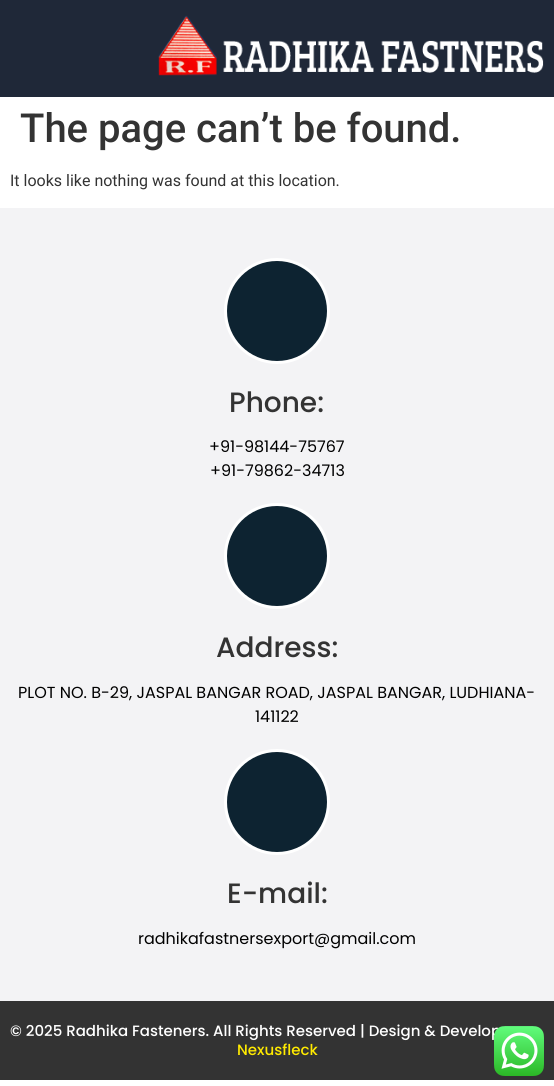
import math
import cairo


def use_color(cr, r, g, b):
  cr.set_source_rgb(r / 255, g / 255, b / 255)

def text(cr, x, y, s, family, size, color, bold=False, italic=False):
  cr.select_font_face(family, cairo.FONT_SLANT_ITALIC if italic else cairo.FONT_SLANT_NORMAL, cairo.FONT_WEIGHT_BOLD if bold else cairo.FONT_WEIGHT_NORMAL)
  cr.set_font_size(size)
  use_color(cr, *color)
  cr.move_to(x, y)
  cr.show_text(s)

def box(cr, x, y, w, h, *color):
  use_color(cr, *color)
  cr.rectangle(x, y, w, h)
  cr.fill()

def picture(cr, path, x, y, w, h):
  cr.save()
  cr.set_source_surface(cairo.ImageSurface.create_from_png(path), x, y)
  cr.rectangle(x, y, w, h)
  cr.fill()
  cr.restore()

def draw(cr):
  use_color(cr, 255, 255, 255)
  cr.paint()
  box(cr, 0, 0, 554, 97, 31, 40, 56)
  picture(cr, "img_01.png", 158, 15, 386, 61)
  box(cr, 0, 208, 554, 793, 243, 243, 245)
  use_color(cr, 13, 35, 49)
  cr.arc(277, 311, 51.5, 0, 2 * math.pi)
  cr.fill_preserve()
  use_color(cr, 255, 255, 255)
  cr.set_line_width(3)
  cr.stroke()
  use_color(cr, 13, 35, 49)
  cr.arc(277, 556, 51.5, 0, 2 * math.pi)
  cr.fill_preserve()
  use_color(cr, 255, 255, 255)
  cr.stroke()
  use_color(cr, 13, 35, 49)
  cr.arc(277, 802, 51.5, 0, 2 * math.pi)
  cr.fill_preserve()
  use_color(cr, 255, 255, 255)
  cr.stroke()
  box(cr, 0, 1001, 554, 79, 51, 51, 51)
  text(cr, 20, 142, "The page can’t be found.", "Roboto Medium", 40, (51, 51, 51))
  text(cr, 10, 186, "It looks like nothing was found at this location.", "Roboto", 16, (51, 51, 51))
  text(cr, 229, 412, "Phone:", "Poppins Medium", 28, (51, 51, 51))
  text(cr, 209, 452, "+91-98144-75767", "Poppins", 16, (0, 0, 0))
  text(cr, 210, 476, "+91-79862-34713", "Poppins", 16, (0, 0, 0))
  text(cr, 216, 657, "Address:", "Poppins Medium", 28, (51, 51, 51))
  text(cr, 18, 698, "PLOT NO. B-29, JASPAL BANGAR ROAD, JASPAL BANGAR, LUDHIANA-", "Poppins", 16, (0, 0, 0))
  text(cr, 255, 722, "141122", "Poppins", 16, (0, 0, 0))
  text(cr, 227, 903, "E-mail:", "Poppins Medium", 28, (51, 51, 51))
  text(cr, 138, 944, "radhikafastnersexport@gmail.com", "Poppins", 16, (0, 0, 0))
  text(cr, 10, 1036, "© 2025 Radhika Fasteners. All Rights Reserved | Design & Develop", "Poppins Medium", 15, (255, 255, 255))
  text(cr, 237, 1055, "Nexusfleck", "Poppins Medium", 15, (255, 234, 0))
  picture(cr, "img_02.png", 494, 1026, 50, 50)


surface = cairo.ImageSurface(cairo.FORMAT_RGB24, 554, 1086)
cr = cairo.Context(surface)
options = cairo.FontOptions()
options.set_hint_metrics(cairo.HINT_METRICS_OFF)
options.set_hint_style(cairo.HINT_STYLE_NONE)
cr.set_font_options(options)
cr.set_miter_limit(4)
draw(cr)
surface.write_to_png("out.png")
